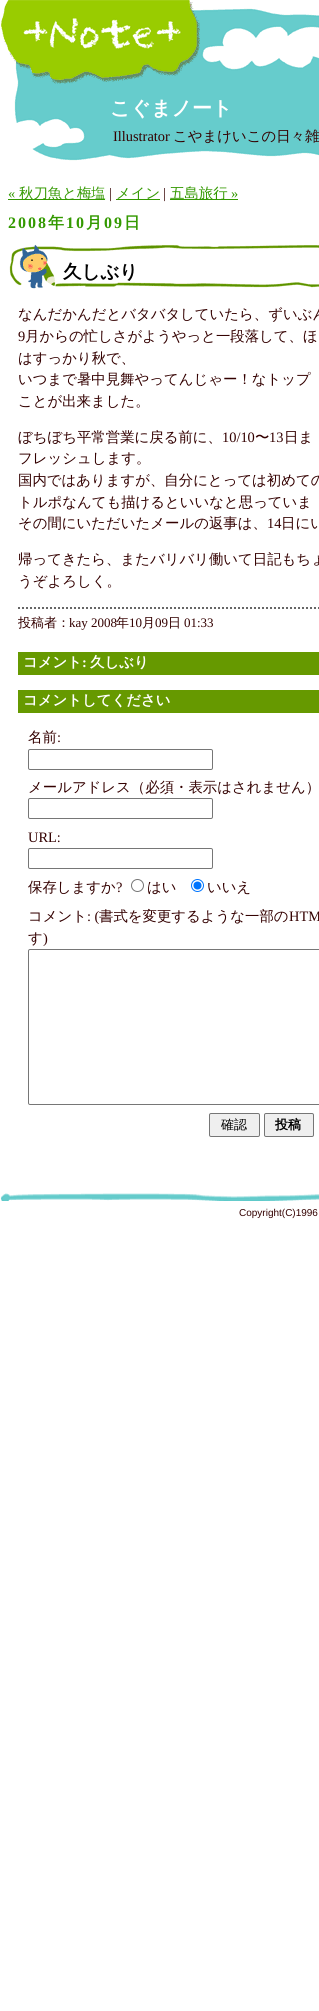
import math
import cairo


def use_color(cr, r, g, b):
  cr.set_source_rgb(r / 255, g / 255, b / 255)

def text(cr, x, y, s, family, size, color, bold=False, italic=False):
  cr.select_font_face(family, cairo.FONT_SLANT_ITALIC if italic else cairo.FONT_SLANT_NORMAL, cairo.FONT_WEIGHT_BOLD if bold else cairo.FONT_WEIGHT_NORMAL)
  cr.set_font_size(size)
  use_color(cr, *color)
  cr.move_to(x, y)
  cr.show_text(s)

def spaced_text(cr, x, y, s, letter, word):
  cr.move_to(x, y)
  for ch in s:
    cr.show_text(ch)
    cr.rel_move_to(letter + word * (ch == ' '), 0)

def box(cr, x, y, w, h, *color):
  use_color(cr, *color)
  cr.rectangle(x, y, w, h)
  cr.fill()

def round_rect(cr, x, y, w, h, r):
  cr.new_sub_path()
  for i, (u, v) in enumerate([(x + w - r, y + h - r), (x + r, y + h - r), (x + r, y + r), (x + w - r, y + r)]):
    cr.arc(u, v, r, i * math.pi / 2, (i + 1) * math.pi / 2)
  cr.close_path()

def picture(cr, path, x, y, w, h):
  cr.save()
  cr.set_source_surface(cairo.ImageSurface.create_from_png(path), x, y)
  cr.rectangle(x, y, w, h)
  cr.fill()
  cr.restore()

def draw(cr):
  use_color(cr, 255, 255, 255)
  cr.paint()
  picture(cr, "img_01.png", 1, 0, 318, 161)
  box(cr, 8, 199, 97, 1, 51, 153, 0)
  box(cr, 116, 199, 44, 1, 51, 153, 0)
  box(cr, 170, 199, 68, 1, 51, 153, 0)
  picture(cr, "img_02.png", 9, 244, 310, 45)
  cr.new_path()
  cr.move_to(18, 608)
  cr.line_to(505, 608)
  use_color(cr, 102, 102, 102)
  cr.set_dash([2, 2])
  cr.stroke()
  box(cr, 18, 652, 301, 23, 102, 153, 0)
  box(cr, 18, 690, 301, 23, 102, 153, 0)
  round_rect(cr, 28.5, 749.5, 184, 20, 1.5)
  use_color(cr, 118, 118, 118)
  cr.set_line_width(1)
  cr.set_dash([])
  cr.stroke()
  round_rect(cr, 28.5, 798.5, 184, 20, 1.5)
  cr.stroke()
  round_rect(cr, 28.5, 848.5, 184, 20, 1.5)
  cr.stroke()
  cr.arc(137.5, 885.5, 6, 0, 2 * math.pi)
  cr.stroke()
  cr.arc(197.5, 885.5, 6, 0, 2 * math.pi)
  use_color(cr, 0, 117, 255)
  cr.stroke()
  cr.arc(197.5, 885.5, 4, 0, 2 * math.pi)
  cr.fill()
  round_rect(cr, 28.5, 949.5, 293, 155, 1.5)
  use_color(cr, 118, 118, 118)
  cr.stroke()
  use_color(cr, 239, 239, 239)
  round_rect(cr, 209.5, 1113.5, 50, 23, 1.5)
  cr.fill_preserve()
  use_color(cr, 118, 118, 118)
  cr.stroke()
  use_color(cr, 239, 239, 239)
  round_rect(cr, 264.5, 1113.5, 49, 23, 1.5)
  cr.fill_preserve()
  use_color(cr, 118, 118, 118)
  cr.stroke()
  picture(cr, "img_03.png", 0, 1193, 319, 8)
  text(cr, 110, 115, "こぐまノート", "WenQuanYi Zen Hei", 20, (255, 255, 255), bold=True)
  text(cr, 113, 141, "Illustrator", "Liberation Serif", 14.4, (51, 0, 0))
  text(cr, 173, 141, "こやまけいこの日々雑", "WenQuanYi Zen Hei Medium", 14.4, (51, 0, 0))
  text(cr, 8, 198, "«", "Liberation Serif", 14.4, (51, 153, 0))
  text(cr, 19, 198, "秋刀魚と梅塩", "WenQuanYi Zen Hei Medium", 14.4, (51, 153, 0))
  text(cr, 109, 198, "|", "Liberation Serif", 14.4, (51, 0, 0))
  text(cr, 116, 198, "メイン", "WenQuanYi Zen Hei Medium", 14.4, (51, 153, 0))
  text(cr, 163, 198, "|", "Liberation Serif", 14.4, (51, 0, 0))
  text(cr, 170, 198, "五島旅行", "WenQuanYi Zen Hei Medium", 14.4, (51, 153, 0))
  text(cr, 231, 198, "»", "Liberation Serif", 14.4, (51, 153, 0))
  cr.select_font_face("Liberation Serif", cairo.FONT_SLANT_NORMAL, cairo.FONT_WEIGHT_BOLD)
  cr.set_font_size(16)
  spaced_text(cr, 8, 228, "2008", 2, 0)
  cr.select_font_face("WenQuanYi Zen Hei", cairo.FONT_SLANT_NORMAL, cairo.FONT_WEIGHT_BOLD)
  spaced_text(cr, 48, 228, "年", 2, 0)
  cr.select_font_face("Liberation Serif", cairo.FONT_SLANT_NORMAL, cairo.FONT_WEIGHT_BOLD)
  spaced_text(cr, 66, 228, "10", 2, 0)
  cr.select_font_face("WenQuanYi Zen Hei", cairo.FONT_SLANT_NORMAL, cairo.FONT_WEIGHT_BOLD)
  spaced_text(cr, 86, 228, "月", 2, 0)
  cr.select_font_face("Liberation Serif", cairo.FONT_SLANT_NORMAL, cairo.FONT_WEIGHT_BOLD)
  spaced_text(cr, 104, 228, "09", 2, 0)
  cr.select_font_face("WenQuanYi Zen Hei", cairo.FONT_SLANT_NORMAL, cairo.FONT_WEIGHT_BOLD)
  spaced_text(cr, 124, 228, "日", 2, 0)
  text(cr, 63, 278, "久しぶり", "WenQuanYi Zen Hei", 18.5, (0, 0, 0), bold=True)
  text(cr, 18, 319, "なんだかんだとバタバタしていたら、ずいぶん", "WenQuanYi Zen Hei Medium", 14.4, (51, 0, 0))
  text(cr, 18, 341, "9", "Liberation Serif", 14.4, (51, 0, 0))
  text(cr, 25, 341, "月からの忙しさがようやっと一段落して、ほ", "WenQuanYi Zen Hei Medium", 14.4, (51, 0, 0))
  text(cr, 18, 363, "はすっかり秋で、", "WenQuanYi Zen Hei Medium", 14.4, (51, 0, 0))
  text(cr, 18, 384, "いつまで暑中見舞やってんじゃー！なトップ", "WenQuanYi Zen Hei Medium", 14.4, (51, 0, 0))
  text(cr, 18, 406, "ことが出来ました。", "WenQuanYi Zen Hei Medium", 14.4, (51, 0, 0))
  text(cr, 18, 442, "ぼちぼち平常営業に戻る前に、", "WenQuanYi Zen Hei Medium", 14.4, (51, 0, 0))
  text(cr, 222, 442, "10/10", "Liberation Serif", 14.4, (51, 0, 0))
  text(cr, 255, 442, "〜", "WenQuanYi Zen Hei Medium", 14.4, (51, 0, 0))
  text(cr, 269, 442, "13", "Liberation Serif", 14.4, (51, 0, 0))
  text(cr, 284, 442, "日ま", "WenQuanYi Zen Hei Medium", 14.4, (51, 0, 0))
  text(cr, 18, 463, "フレッシュします。", "WenQuanYi Zen Hei Medium", 14.4, (51, 0, 0))
  text(cr, 18, 485, "国内ではありますが、自分にとっては初めての", "WenQuanYi Zen Hei Medium", 14.4, (51, 0, 0))
  text(cr, 18, 507, "トルポなんても描けるといいなと思っていま", "WenQuanYi Zen Hei Medium", 14.4, (51, 0, 0))
  text(cr, 18, 528, "その間にいただいたメールの返事は、", "WenQuanYi Zen Hei Medium", 14.4, (51, 0, 0))
  text(cr, 267, 528, "14", "Liberation Serif", 14.4, (51, 0, 0))
  text(cr, 281, 528, "日にい", "WenQuanYi Zen Hei Medium", 14.4, (51, 0, 0))
  text(cr, 18, 564, "帰ってきたら、またバリバリ働いて日記もちょ", "WenQuanYi Zen Hei Medium", 14.4, (51, 0, 0))
  text(cr, 18, 586, "うぞよろしく。", "WenQuanYi Zen Hei Medium", 14.4, (51, 0, 0))
  text(cr, 18, 627, "投稿者：", "WenQuanYi Zen Hei Medium", 13, (51, 0, 0))
  text(cr, 69, 627, "kay 2008", "Liberation Serif", 13, (51, 0, 0))
  text(cr, 116, 627, "年", "WenQuanYi Zen Hei Medium", 13, (51, 0, 0))
  text(cr, 129, 627, "10", "Liberation Serif", 13, (51, 0, 0))
  text(cr, 142, 627, "月", "WenQuanYi Zen Hei Medium", 13, (51, 0, 0))
  text(cr, 155, 627, "09", "Liberation Serif", 13, (51, 0, 0))
  text(cr, 168, 627, "日", "WenQuanYi Zen Hei Medium", 13, (51, 0, 0))
  text(cr, 184, 627, "01:33", "Liberation Serif", 13, (51, 0, 0))
  text(cr, 23, 667, "コメント", "WenQuanYi Zen Hei", 14.4, (255, 255, 255), bold=True)
  text(cr, 82, 667, ":", "Liberation Serif", 14.4, (255, 255, 255), bold=True)
  text(cr, 90, 667, "久しぶり", "WenQuanYi Zen Hei", 14.4, (255, 255, 255), bold=True)
  text(cr, 23, 705, "コメントしてください", "WenQuanYi Zen Hei", 14.4, (255, 255, 255), bold=True)
  text(cr, 28, 742, "名前", "WenQuanYi Zen Hei Medium", 14.4, (51, 0, 0))
  text(cr, 57, 742, ":", "Liberation Serif", 14.4, (51, 0, 0))
  text(cr, 28, 792, "メールアドレス（必須・表示はされません）", "WenQuanYi Zen Hei Medium", 14.4, (51, 0, 0))
  text(cr, 28, 842, "URL:", "Liberation Serif", 14.4, (51, 0, 0))
  text(cr, 28, 892, "保存しますか", "WenQuanYi Zen Hei Medium", 14.4, (51, 0, 0))
  text(cr, 116, 892, "?", "Liberation Serif", 14.4, (51, 0, 0))
  text(cr, 147, 892, "はい", "WenQuanYi Zen Hei Medium", 14.4, (51, 0, 0))
  text(cr, 207, 892, "いいえ", "WenQuanYi Zen Hei Medium", 14.4, (51, 0, 0))
  text(cr, 28, 921, "コメント", "WenQuanYi Zen Hei Medium", 14.4, (51, 0, 0))
  text(cr, 87, 921, ": (", "Liberation Serif", 14.4, (51, 0, 0))
  text(cr, 99, 921, "書式を変更するような一部の", "WenQuanYi Zen Hei Medium", 14.4, (51, 0, 0))
  text(cr, 289, 921, "HTM", "Liberation Serif", 14.4, (51, 0, 0))
  text(cr, 28, 943, "す", "WenQuanYi Zen Hei Medium", 14.4, (51, 0, 0))
  text(cr, 43, 943, ")", "Liberation Serif", 14.4, (51, 0, 0))
  text(cr, 221, 1129, "確認", "WenQuanYi Zen Hei Medium", 13, (0, 0, 0))
  text(cr, 275, 1129, "投稿", "WenQuanYi Zen Hei", 13, (0, 0, 0), bold=True)
  text(cr, 239, 1216, "Copyright(C)1996", "Liberation Sans", 10, (51, 0, 0))


surface = cairo.ImageSurface(cairo.FORMAT_RGB24, 319, 2011)
cr = cairo.Context(surface)
options = cairo.FontOptions()
options.set_hint_metrics(cairo.HINT_METRICS_OFF)
options.set_hint_style(cairo.HINT_STYLE_NONE)
cr.set_font_options(options)
cr.set_miter_limit(4)
draw(cr)
surface.write_to_png("out.png")
